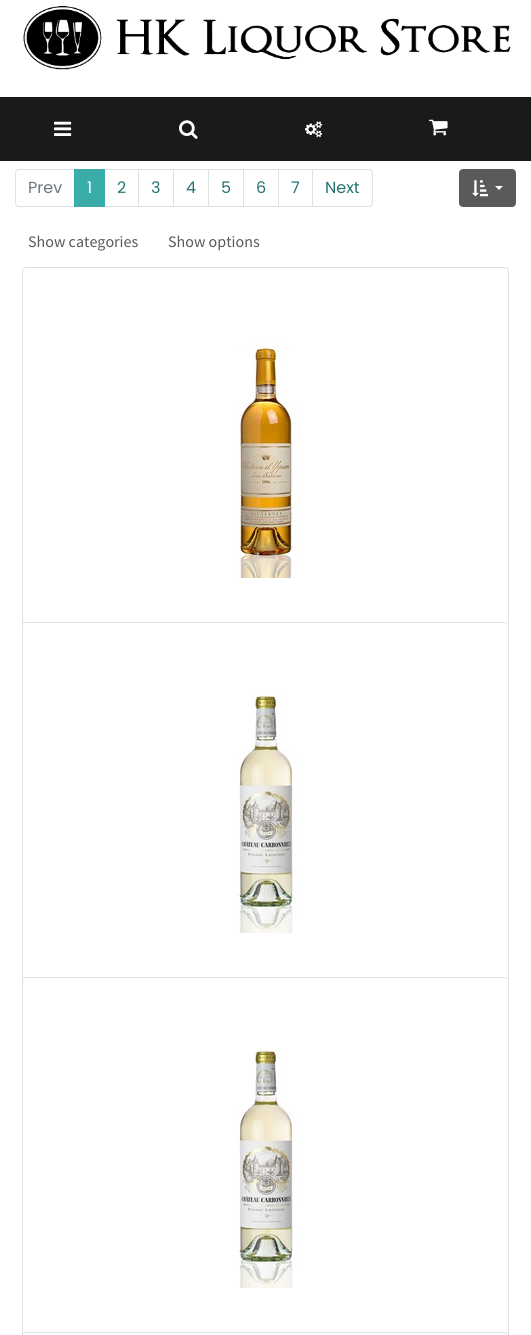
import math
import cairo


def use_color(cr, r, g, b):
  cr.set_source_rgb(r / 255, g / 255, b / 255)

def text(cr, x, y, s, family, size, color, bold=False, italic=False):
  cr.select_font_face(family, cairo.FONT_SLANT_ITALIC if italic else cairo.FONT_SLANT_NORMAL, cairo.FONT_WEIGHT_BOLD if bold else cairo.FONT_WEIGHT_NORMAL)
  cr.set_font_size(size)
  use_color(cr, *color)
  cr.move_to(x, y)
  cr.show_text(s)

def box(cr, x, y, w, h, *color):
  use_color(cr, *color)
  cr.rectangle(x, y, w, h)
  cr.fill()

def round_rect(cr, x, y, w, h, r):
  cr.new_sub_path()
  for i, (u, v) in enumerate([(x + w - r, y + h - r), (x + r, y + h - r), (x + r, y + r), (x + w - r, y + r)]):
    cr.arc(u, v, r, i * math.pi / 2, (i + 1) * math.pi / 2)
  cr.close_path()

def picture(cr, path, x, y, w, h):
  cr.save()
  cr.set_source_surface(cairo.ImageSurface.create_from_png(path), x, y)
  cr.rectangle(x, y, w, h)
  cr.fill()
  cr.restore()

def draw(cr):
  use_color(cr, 255, 255, 255)
  cr.paint()
  picture(cr, "img_01.png", 23, 5, 488, 65)
  box(cr, 0, 97, 531, 64, 25, 26, 26)
  picture(cr, "img_02.png", 54, 121, 18, 15)
  picture(cr, "img_03.png", 179, 120, 19, 19)
  picture(cr, "img_04.png", 305, 121, 18, 17)
  picture(cr, "img_05.png", 429, 119, 19, 17)
  cr.new_path()
  cr.move_to(19, 169.5)
  cr.line_to(74.5, 169.5)
  cr.line_to(74.5, 206.5)
  cr.line_to(19, 206.5)
  cr.curve_to(17, 206.5, 15.5, 205, 15.5, 203)
  cr.line_to(15.5, 173)
  cr.curve_to(15.5, 171, 17, 169.5, 19, 169.5)
  cr.close_path()
  use_color(cr, 222, 226, 230)
  cr.set_line_width(1)
  cr.stroke()
  cr.rectangle(104.5, 169.5, 34, 37)
  cr.stroke()
  box(cr, 74, 169, 31, 38, 58, 173, 170)
  cr.rectangle(138.5, 169.5, 35, 37)
  use_color(cr, 222, 226, 230)
  cr.stroke()
  cr.rectangle(173.5, 169.5, 35, 37)
  cr.stroke()
  cr.rectangle(208.5, 169.5, 35, 37)
  cr.stroke()
  cr.rectangle(243.5, 169.5, 35, 37)
  cr.stroke()
  cr.rectangle(278.5, 169.5, 34, 37)
  cr.stroke()
  use_color(cr, 255, 255, 255)
  cr.new_path()
  cr.move_to(312.5, 169.5)
  cr.line_to(369, 169.5)
  cr.curve_to(371, 169.5, 372.5, 171, 372.5, 173)
  cr.line_to(372.5, 203)
  cr.curve_to(372.5, 205, 371, 206.5, 369, 206.5)
  cr.line_to(312.5, 206.5)
  cr.close_path()
  cr.fill_preserve()
  use_color(cr, 222, 226, 230)
  cr.stroke()
  use_color(cr, 90, 90, 90)
  round_rect(cr, 459.5, 169.5, 56, 37, 3.5)
  cr.fill_preserve()
  cr.stroke()
  picture(cr, "img_06.png", 472, 180, 16, 17)
  use_color(cr, 255, 255, 255)
  cr.new_path()
  cr.move_to(495, 186)
  cr.line_to(503, 186)
  cr.line_to(499, 190)
  cr.close_path()
  cr.fill()
  round_rect(cr, 22.5, 267.5, 486, 486, 3.5)
  use_color(cr, 223, 223, 223)
  cr.stroke()
  cr.set_source_rgba(1, 1, 1, 0.9)
  round_rect(cr, 23, 268, 485, 364, 3)
  cr.fill()
  picture(cr, "img_07.png", 233, 338, 64, 240)
  use_color(cr, 255, 255, 255)
  round_rect(cr, 22, 622, 487, 487, 4)
  cr.fill()
  round_rect(cr, 22.5, 622.5, 486, 486, 3.5)
  cr.set_source_rgba(0, 0, 0, 0.12)
  cr.stroke()
  cr.set_source_rgba(1, 1, 1, 0.9)
  round_rect(cr, 23, 623, 485, 364, 3)
  cr.fill()
  picture(cr, "img_08.png", 233, 693, 64, 240)
  use_color(cr, 255, 255, 255)
  cr.new_path()
  cr.move_to(26, 977)
  cr.line_to(505, 977)
  cr.curve_to(507, 977, 509, 979, 509, 981)
  cr.line_to(509, 1335)
  cr.line_to(22, 1335)
  cr.line_to(22, 981)
  cr.curve_to(22, 979, 24, 977, 26, 977)
  cr.close_path()
  cr.fill()
  round_rect(cr, 22.5, 977.5, 486, 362, 3.5)
  cr.set_source_rgba(0, 0, 0, 0.12)
  cr.stroke()
  cr.set_source_rgba(1, 1, 1, 0.9)
  cr.new_path()
  cr.move_to(26, 978)
  cr.line_to(505, 978)
  cr.curve_to(506.5, 978, 508, 979.5, 508, 981)
  cr.line_to(508, 1335)
  cr.line_to(23, 1335)
  cr.line_to(23, 981)
  cr.curve_to(23, 979.5, 24.5, 978, 26, 978)
  cr.close_path()
  cr.fill()
  picture(cr, "img_08.png", 233, 1048, 64, 240)
  use_color(cr, 255, 255, 255)
  cr.new_path()
  cr.move_to(26, 1332)
  cr.line_to(505, 1332)
  cr.curve_to(507, 1332, 509, 1334, 509, 1336)
  cr.line_to(509, 1335)
  cr.line_to(22, 1335)
  cr.line_to(22, 1336)
  cr.curve_to(22, 1334, 24, 1332, 26, 1332)
  cr.close_path()
  cr.fill()
  round_rect(cr, 22.5, 1332.5, 486, 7, 3.5)
  cr.set_source_rgba(0, 0, 0, 0.12)
  cr.stroke()
  cr.set_source_rgba(1, 1, 1, 0.9)
  cr.new_path()
  cr.move_to(26, 1333)
  cr.line_to(505, 1333)
  cr.curve_to(506.5, 1333, 508, 1334.5, 508, 1336)
  cr.line_to(508, 1335)
  cr.line_to(23, 1335)
  cr.line_to(23, 1336)
  cr.curve_to(23, 1334.5, 24.5, 1333, 26, 1333)
  cr.close_path()
  cr.fill()
  text(cr, 28, 193, "Prev", "Poppins", 16, (108, 117, 125))
  text(cr, 87, 193, "1", "Poppins", 16, (255, 255, 255))
  text(cr, 117, 193, "2", "Poppins", 16, (38, 115, 114))
  text(cr, 151, 193, "3", "Poppins", 16, (38, 115, 114))
  text(cr, 186, 193, "4", "Poppins", 16, (38, 115, 114))
  text(cr, 221, 193, "5", "Poppins", 16, (38, 115, 114))
  text(cr, 256, 193, "6", "Poppins", 16, (38, 115, 114))
  text(cr, 291, 193, "7", "Poppins", 16, (38, 115, 114))
  text(cr, 325, 193, "Next", "Poppins", 16, (38, 115, 114))
  text(cr, 28, 247, "Show categories", "Source Sans Pro", 16, (90, 90, 90))
  text(cr, 168, 247, "Show options", "Source Sans Pro", 16, (90, 90, 90))


surface = cairo.ImageSurface(cairo.FORMAT_RGB24, 531, 1335)
cr = cairo.Context(surface)
options = cairo.FontOptions()
options.set_hint_metrics(cairo.HINT_METRICS_OFF)
options.set_hint_style(cairo.HINT_STYLE_NONE)
cr.set_font_options(options)
cr.set_miter_limit(4)
draw(cr)
surface.write_to_png("out.png")
